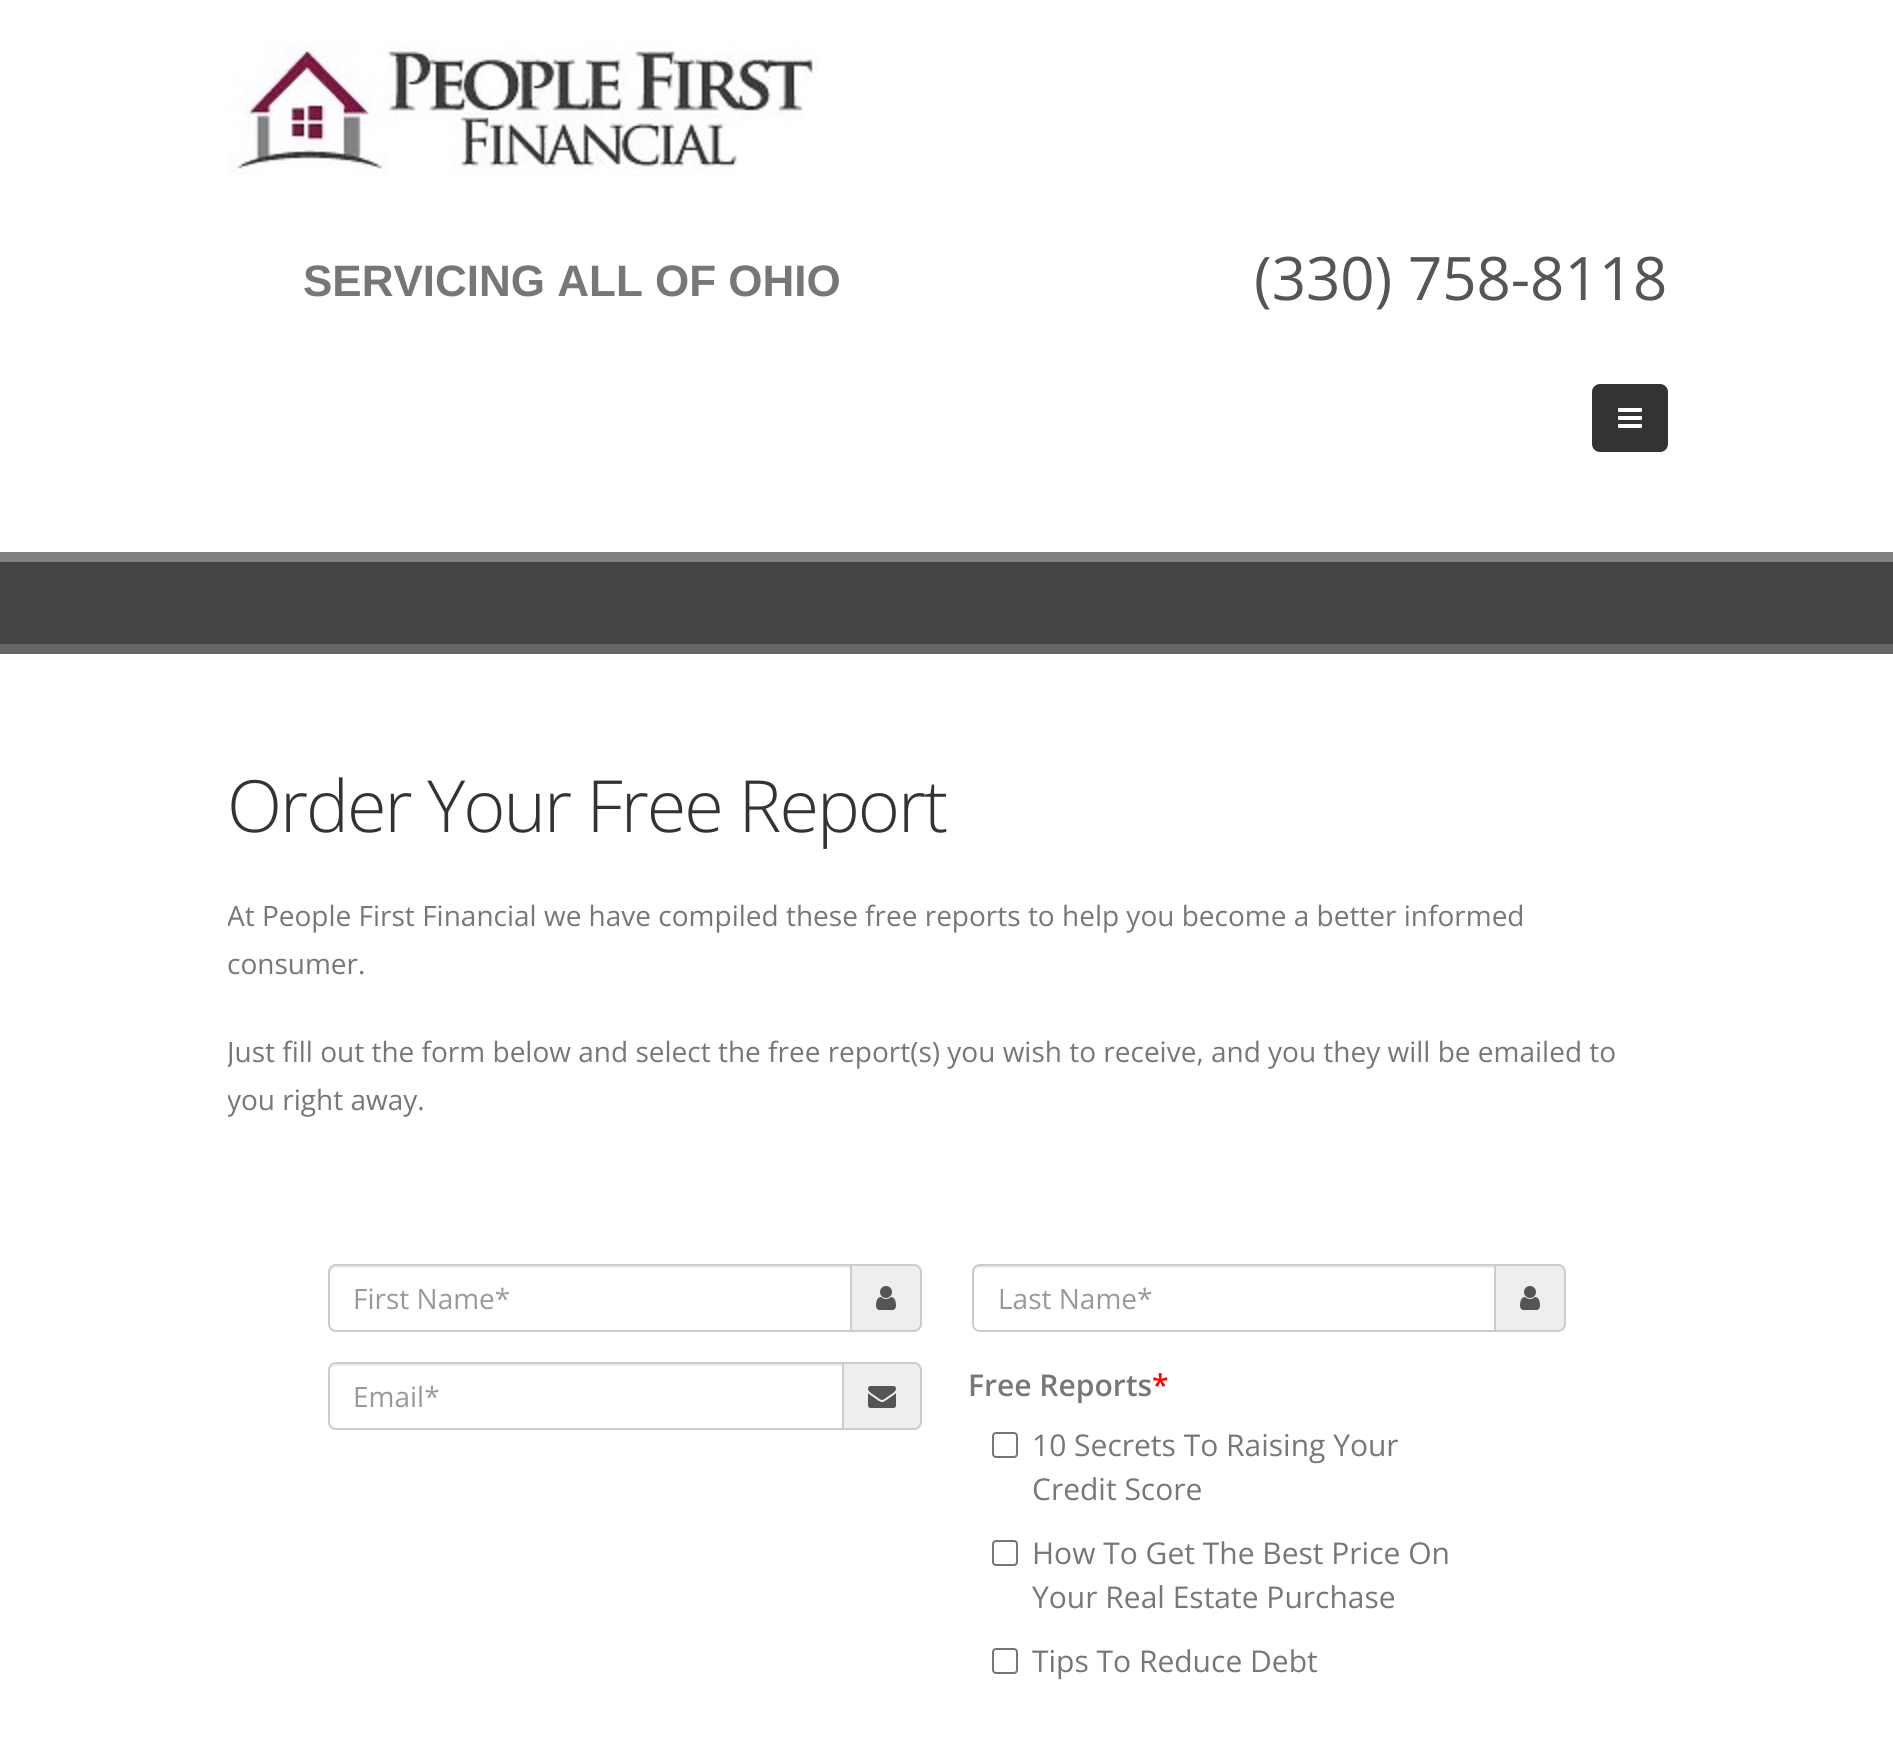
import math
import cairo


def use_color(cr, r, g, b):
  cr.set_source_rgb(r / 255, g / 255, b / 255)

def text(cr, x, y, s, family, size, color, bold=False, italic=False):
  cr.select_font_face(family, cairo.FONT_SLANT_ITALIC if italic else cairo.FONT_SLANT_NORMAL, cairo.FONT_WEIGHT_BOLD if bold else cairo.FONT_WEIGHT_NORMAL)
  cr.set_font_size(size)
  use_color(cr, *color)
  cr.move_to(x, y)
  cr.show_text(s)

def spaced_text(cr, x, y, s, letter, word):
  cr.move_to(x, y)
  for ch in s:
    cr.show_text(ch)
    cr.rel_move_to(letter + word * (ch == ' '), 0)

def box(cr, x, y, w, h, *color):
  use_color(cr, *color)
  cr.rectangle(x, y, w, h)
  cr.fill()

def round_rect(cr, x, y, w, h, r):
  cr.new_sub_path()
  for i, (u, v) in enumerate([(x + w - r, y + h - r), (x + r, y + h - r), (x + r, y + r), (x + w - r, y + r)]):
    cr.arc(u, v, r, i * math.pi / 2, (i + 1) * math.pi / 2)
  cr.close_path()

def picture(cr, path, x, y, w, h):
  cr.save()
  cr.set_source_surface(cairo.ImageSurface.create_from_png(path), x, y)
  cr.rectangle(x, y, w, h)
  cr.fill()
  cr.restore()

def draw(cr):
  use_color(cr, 255, 255, 255)
  cr.paint()
  picture(cr, "img_01.png", 228, 42, 590, 135)
  use_color(cr, 51, 51, 51)
  round_rect(cr, 1592, 384, 76, 68, 8)
  cr.fill()
  picture(cr, "img_02.png", 1618, 408, 24, 20)
  box(cr, 0, 562, 1893, 82, 68, 68, 68)
  box(cr, 0, 552, 1893, 10, 129, 129, 128)
  box(cr, 0, 644, 1893, 10, 102, 102, 102)
  use_color(cr, 236, 236, 236)
  cr.new_path()
  cr.move_to(336, 1268)
  cr.line_to(850, 1268)
  cr.line_to(850, 1266)
  cr.line_to(336, 1266)
  cr.curve_to(333, 1266, 330, 1269, 330, 1272)
  cr.line_to(330, 1274)
  cr.curve_to(330, 1271, 333, 1268, 336, 1268)
  cr.close_path()
  cr.fill()
  cr.new_path()
  cr.move_to(336, 1265)
  cr.line_to(851, 1265)
  cr.line_to(851, 1331)
  cr.line_to(336, 1331)
  cr.curve_to(332, 1331, 329, 1328, 329, 1324)
  cr.line_to(329, 1272)
  cr.curve_to(329, 1268, 332, 1265, 336, 1265)
  cr.close_path()
  use_color(cr, 204, 204, 204)
  cr.stroke()
  use_color(cr, 238, 238, 238)
  cr.new_path()
  cr.move_to(852, 1264)
  cr.line_to(914, 1264)
  cr.curve_to(918.5, 1264, 922, 1267.5, 922, 1272)
  cr.line_to(922, 1324)
  cr.curve_to(922, 1328.5, 918.5, 1332, 914, 1332)
  cr.line_to(852, 1332)
  cr.close_path()
  cr.fill()
  use_color(cr, 204, 204, 204)
  cr.set_fill_rule(cairo.FILL_RULE_EVEN_ODD)
  cr.new_path()
  cr.move_to(852, 1264)
  cr.line_to(914, 1264)
  cr.curve_to(918, 1264, 922, 1268, 922, 1272)
  cr.line_to(922, 1324)
  cr.curve_to(922, 1328, 918, 1332, 914, 1332)
  cr.line_to(852, 1332)
  cr.close_path()
  cr.move_to(852, 1266)
  cr.line_to(914, 1266)
  cr.curve_to(917, 1266, 920, 1269, 920, 1272)
  cr.line_to(920, 1324)
  cr.curve_to(920, 1327, 917, 1330, 914, 1330)
  cr.line_to(852, 1330)
  cr.close_path()
  cr.fill()
  picture(cr, "img_03.png", 876, 1286, 20, 24)
  use_color(cr, 236, 236, 236)
  cr.set_fill_rule(cairo.FILL_RULE_WINDING)
  cr.new_path()
  cr.move_to(980, 1268)
  cr.line_to(1494, 1268)
  cr.line_to(1494, 1266)
  cr.line_to(980, 1266)
  cr.curve_to(977, 1266, 974, 1269, 974, 1272)
  cr.line_to(974, 1274)
  cr.curve_to(974, 1271, 977, 1268, 980, 1268)
  cr.close_path()
  cr.fill()
  cr.new_path()
  cr.move_to(980, 1265)
  cr.line_to(1495, 1265)
  cr.line_to(1495, 1331)
  cr.line_to(980, 1331)
  cr.curve_to(976, 1331, 973, 1328, 973, 1324)
  cr.line_to(973, 1272)
  cr.curve_to(973, 1268, 976, 1265, 980, 1265)
  cr.close_path()
  use_color(cr, 204, 204, 204)
  cr.stroke()
  use_color(cr, 238, 238, 238)
  cr.new_path()
  cr.move_to(1496, 1264)
  cr.line_to(1558, 1264)
  cr.curve_to(1562.5, 1264, 1566, 1267.5, 1566, 1272)
  cr.line_to(1566, 1324)
  cr.curve_to(1566, 1328.5, 1562.5, 1332, 1558, 1332)
  cr.line_to(1496, 1332)
  cr.close_path()
  cr.fill()
  use_color(cr, 204, 204, 204)
  cr.set_fill_rule(cairo.FILL_RULE_EVEN_ODD)
  cr.new_path()
  cr.move_to(1496, 1264)
  cr.line_to(1558, 1264)
  cr.curve_to(1562, 1264, 1566, 1268, 1566, 1272)
  cr.line_to(1566, 1324)
  cr.curve_to(1566, 1328, 1562, 1332, 1558, 1332)
  cr.line_to(1496, 1332)
  cr.close_path()
  cr.move_to(1496, 1266)
  cr.line_to(1558, 1266)
  cr.curve_to(1561, 1266, 1564, 1269, 1564, 1272)
  cr.line_to(1564, 1324)
  cr.curve_to(1564, 1327, 1561, 1330, 1558, 1330)
  cr.line_to(1496, 1330)
  cr.close_path()
  cr.fill()
  picture(cr, "img_03.png", 1520, 1286, 20, 24)
  use_color(cr, 236, 236, 236)
  cr.set_fill_rule(cairo.FILL_RULE_WINDING)
  cr.new_path()
  cr.move_to(336, 1366)
  cr.line_to(842, 1366)
  cr.line_to(842, 1364)
  cr.line_to(336, 1364)
  cr.curve_to(333, 1364, 330, 1367, 330, 1370)
  cr.line_to(330, 1372)
  cr.curve_to(330, 1369, 333, 1366, 336, 1366)
  cr.close_path()
  cr.fill()
  cr.new_path()
  cr.move_to(336, 1363)
  cr.line_to(843, 1363)
  cr.line_to(843, 1429)
  cr.line_to(336, 1429)
  cr.curve_to(332, 1429, 329, 1426, 329, 1422)
  cr.line_to(329, 1370)
  cr.curve_to(329, 1366, 332, 1363, 336, 1363)
  cr.close_path()
  use_color(cr, 204, 204, 204)
  cr.stroke()
  use_color(cr, 238, 238, 238)
  cr.new_path()
  cr.move_to(844, 1362)
  cr.line_to(914, 1362)
  cr.curve_to(918.5, 1362, 922, 1365.5, 922, 1370)
  cr.line_to(922, 1422)
  cr.curve_to(922, 1426.5, 918.5, 1430, 914, 1430)
  cr.line_to(844, 1430)
  cr.close_path()
  cr.fill()
  use_color(cr, 204, 204, 204)
  cr.set_fill_rule(cairo.FILL_RULE_EVEN_ODD)
  cr.new_path()
  cr.move_to(844, 1362)
  cr.line_to(914, 1362)
  cr.curve_to(918, 1362, 922, 1366, 922, 1370)
  cr.line_to(922, 1422)
  cr.curve_to(922, 1426, 918, 1430, 914, 1430)
  cr.line_to(844, 1430)
  cr.close_path()
  cr.move_to(844, 1364)
  cr.line_to(914, 1364)
  cr.curve_to(917, 1364, 920, 1367, 920, 1370)
  cr.line_to(920, 1422)
  cr.curve_to(920, 1425, 917, 1428, 914, 1428)
  cr.line_to(844, 1428)
  cr.close_path()
  cr.fill()
  picture(cr, "img_04.png", 868, 1386, 28, 22)
  round_rect(cr, 993, 1433, 24, 24, 3)
  use_color(cr, 118, 118, 118)
  cr.stroke()
  round_rect(cr, 993, 1541, 24, 24, 3)
  cr.stroke()
  round_rect(cr, 993, 1649, 24, 24, 3)
  cr.stroke()
  text(cr, 303, 296, "SERVICING ALL OF OHIO", "Liberation Sans", 44, (119, 119, 119), bold=True)
  text(cr, 1254, 300, "(330) 758-8118", "Open Sans", 60, (85, 85, 85))
  cr.select_font_face("Open Sans Light")
  cr.set_font_size(72)
  use_color(cr, 51, 51, 51)
  spaced_text(cr, 227, 832, "Order Your Free Report", -2, 0)
  cr.save()
  cr.set_fill_rule(cairo.FILL_RULE_WINDING)
  cr.rectangle(228, 724, 1440, 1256)
  cr.clip()
  text(cr, 227, 926, "At People First Financial we have compiled these free reports to help you become a better informed", "Open Sans", 28, (119, 119, 119))
  cr.restore()
  text(cr, 227, 974, "consumer.", "Open Sans", 28, (119, 119, 119))
  cr.save()
  cr.set_fill_rule(cairo.FILL_RULE_WINDING)
  cr.rectangle(228, 724, 1440, 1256)
  cr.clip()
  text(cr, 227, 1062, "Just fill out the form below and select the free report(s) you wish to receive, and you they will be emailed to", "Open Sans", 28, (119, 119, 119))
  text(cr, 227, 1110, "you right away.", "Open Sans", 28, (119, 119, 119))
  cr.restore()
  text(cr, 353, 1309, "First Name*", "Open Sans", 28, (153, 153, 153))
  text(cr, 998, 1309, "Last Name*", "Open Sans", 28, (153, 153, 153))
  text(cr, 353, 1407, "Email*", "Open Sans", 28, (153, 153, 153))
  text(cr, 968, 1396, "Free Reports", "Open Sans SemiBold", 30, (119, 119, 119))
  text(cr, 1152, 1396, "*", "Open Sans SemiBold", 30, (255, 0, 0))
  text(cr, 1032, 1456, "10 Secrets To Raising Your", "Open Sans", 30, (119, 119, 119))
  text(cr, 1032, 1500, "Credit Score", "Open Sans", 30, (119, 119, 119))
  text(cr, 1032, 1564, "How To Get The Best Price On", "Open Sans", 30, (119, 119, 119))
  text(cr, 1032, 1608, "Your Real Estate Purchase", "Open Sans", 30, (119, 119, 119))
  text(cr, 1032, 1672, "Tips To Reduce Debt", "Open Sans", 30, (119, 119, 119))


surface = cairo.ImageSurface(cairo.FORMAT_RGB24, 1893, 1762)
cr = cairo.Context(surface)
options = cairo.FontOptions()
options.set_hint_metrics(cairo.HINT_METRICS_OFF)
options.set_hint_style(cairo.HINT_STYLE_NONE)
cr.set_font_options(options)
cr.set_miter_limit(4)
draw(cr)
surface.write_to_png("out.png")
